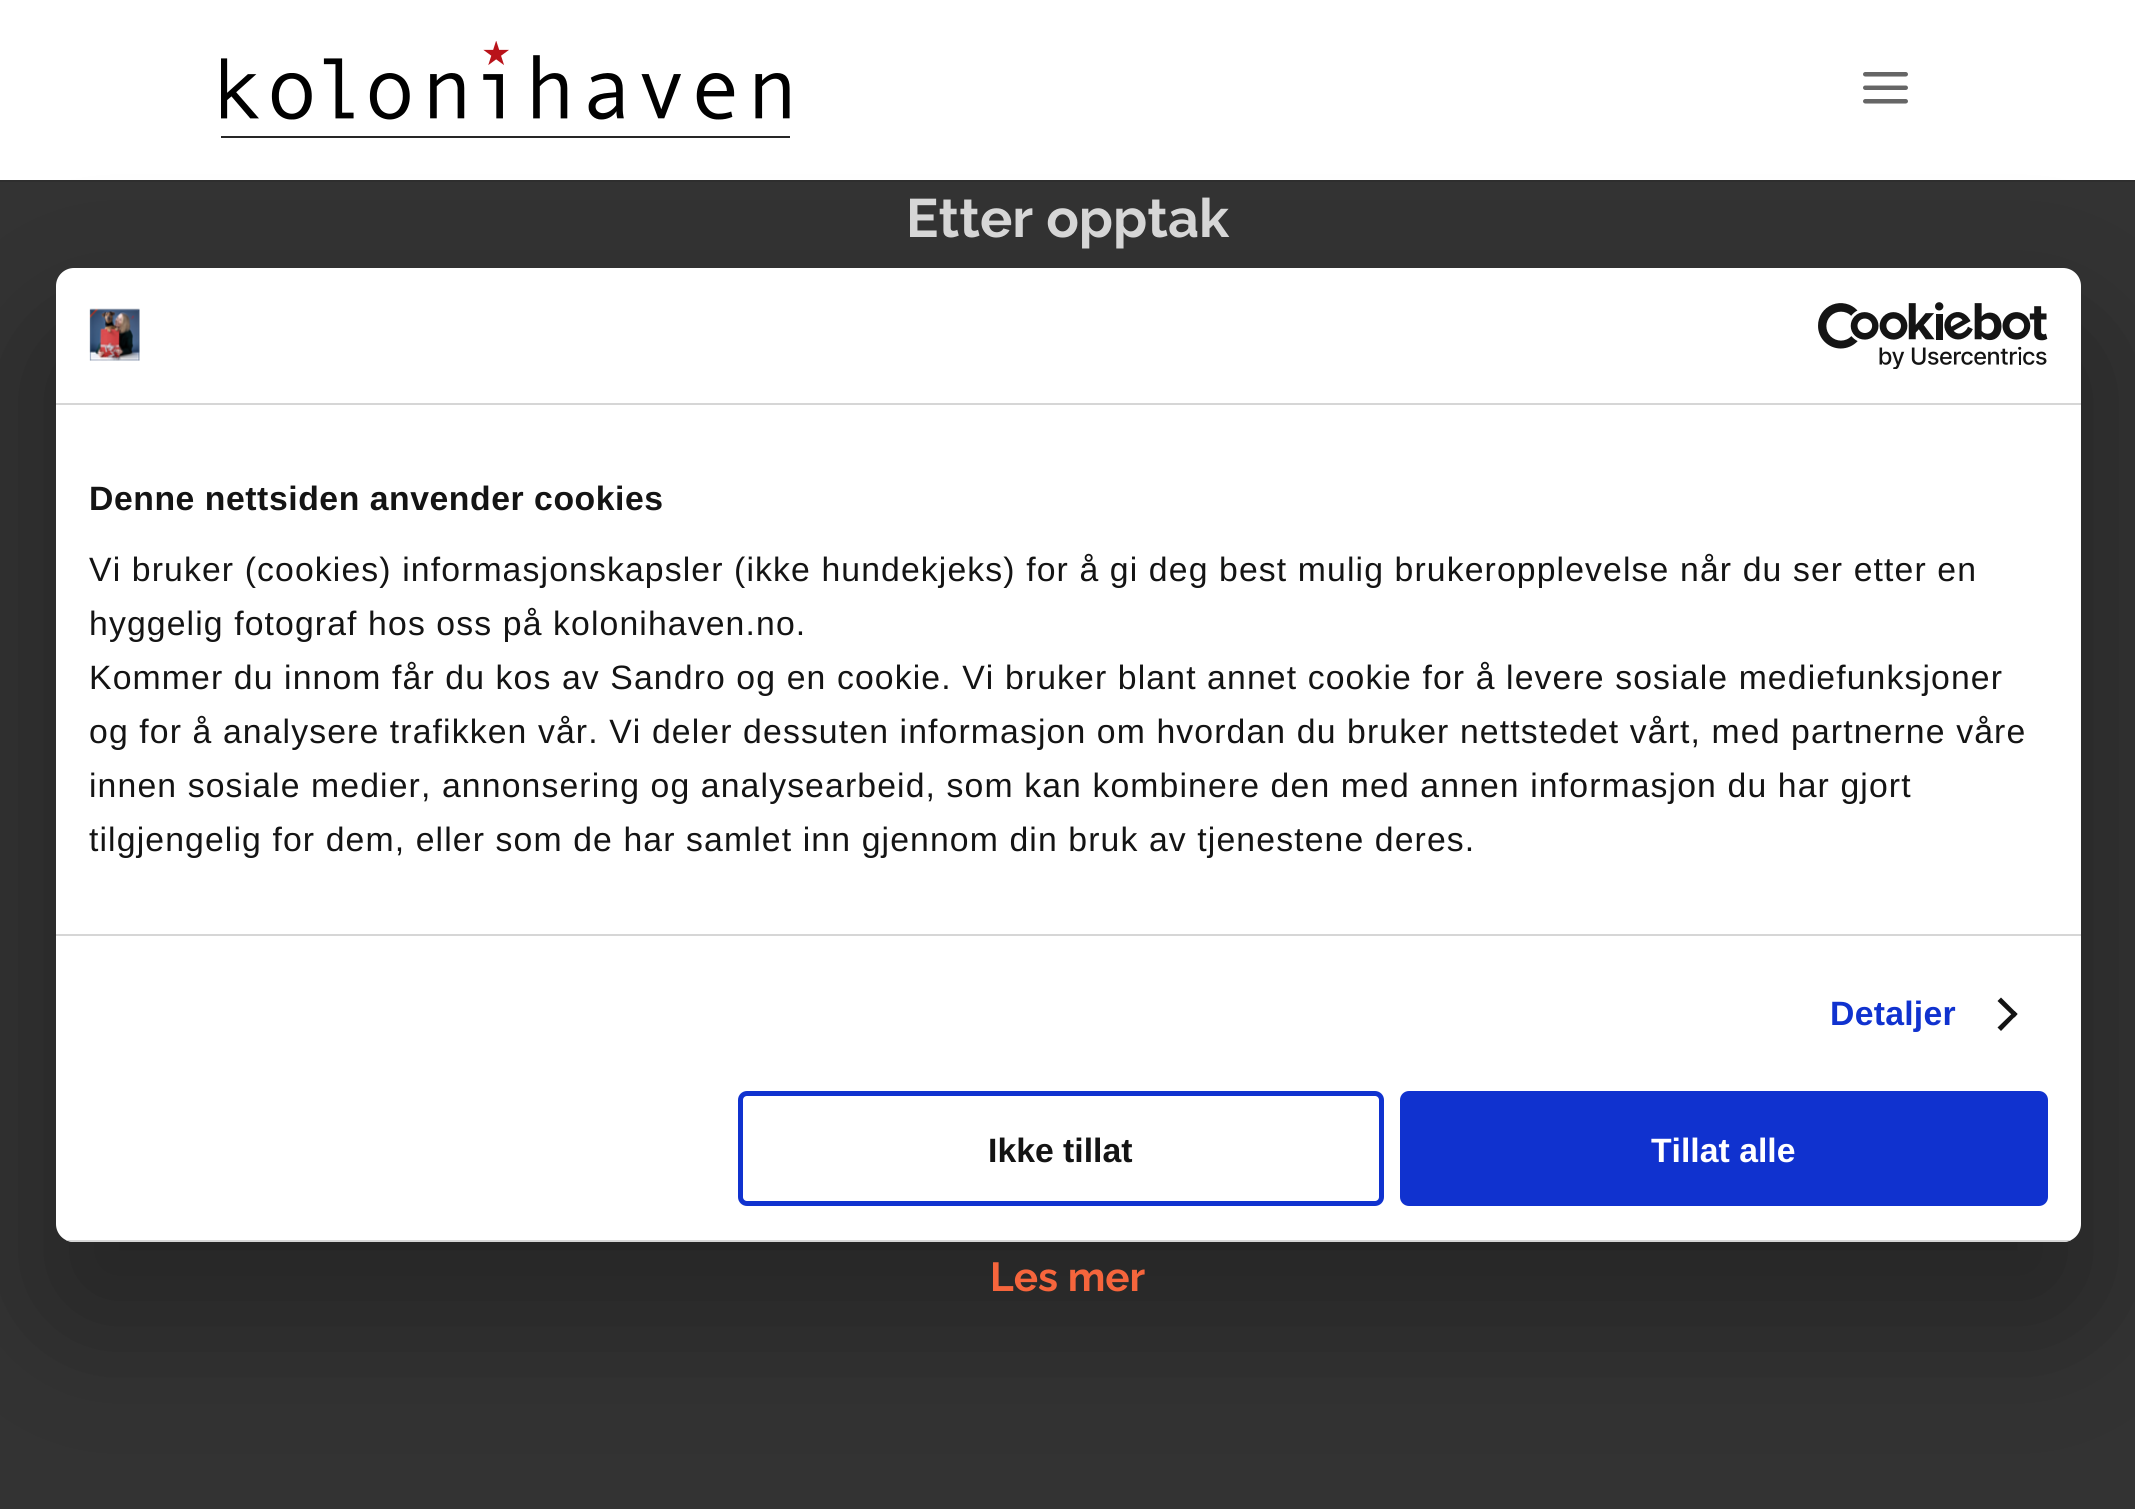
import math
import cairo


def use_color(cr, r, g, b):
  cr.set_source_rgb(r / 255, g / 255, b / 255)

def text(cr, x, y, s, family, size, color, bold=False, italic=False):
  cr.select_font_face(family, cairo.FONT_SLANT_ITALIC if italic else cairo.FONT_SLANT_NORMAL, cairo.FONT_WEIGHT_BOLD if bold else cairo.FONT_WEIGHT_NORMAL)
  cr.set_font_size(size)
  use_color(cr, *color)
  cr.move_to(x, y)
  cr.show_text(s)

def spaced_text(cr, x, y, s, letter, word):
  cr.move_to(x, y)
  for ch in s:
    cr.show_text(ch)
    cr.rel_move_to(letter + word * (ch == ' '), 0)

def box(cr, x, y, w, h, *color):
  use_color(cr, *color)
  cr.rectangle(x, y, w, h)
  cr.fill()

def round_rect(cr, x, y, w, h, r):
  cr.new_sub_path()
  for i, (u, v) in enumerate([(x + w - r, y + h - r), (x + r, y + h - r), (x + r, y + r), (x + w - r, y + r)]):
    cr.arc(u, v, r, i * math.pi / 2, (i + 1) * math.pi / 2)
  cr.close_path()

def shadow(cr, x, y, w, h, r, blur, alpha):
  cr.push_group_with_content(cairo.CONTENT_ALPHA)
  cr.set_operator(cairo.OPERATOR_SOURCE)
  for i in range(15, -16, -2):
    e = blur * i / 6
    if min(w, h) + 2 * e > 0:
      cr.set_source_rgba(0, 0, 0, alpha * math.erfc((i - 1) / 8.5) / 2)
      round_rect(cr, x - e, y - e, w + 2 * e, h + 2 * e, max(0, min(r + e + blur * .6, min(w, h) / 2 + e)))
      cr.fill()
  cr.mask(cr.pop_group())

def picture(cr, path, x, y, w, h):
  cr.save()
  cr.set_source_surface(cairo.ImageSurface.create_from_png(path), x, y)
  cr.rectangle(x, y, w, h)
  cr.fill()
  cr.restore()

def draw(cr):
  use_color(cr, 51, 51, 51)
  cr.paint()
  box(cr, 0, 180, 2135, 2, 46, 46, 46)
  box(cr, 0, 0, 2135, 180, 255, 255, 255)
  picture(cr, "img_01.png", 221, 41, 569, 97)
  picture(cr, "img_02.png", 1863, 72, 45, 32)
  use_color(cr, 0, 0, 0)
  shadow(cr, 56, 340, 2025, 974, 18, 76.5, 0.3)
  use_color(cr, 255, 255, 255)
  round_rect(cr, 56, 268, 2025, 974, 18)
  cr.fill()
  box(cr, 56, 403, 2025, 2, 214, 214, 214)
  picture(cr, "img_03.png", 89, 308, 51, 53)
  picture(cr, "img_04.png", 1818, 302, 230, 67)
  box(cr, 56, 934, 2025, 2, 214, 214, 214)
  use_color(cr, 20, 20, 20)
  cr.new_path()
  cr.move_to(2001, 997.5)
  cr.line_to(2017.5, 1014)
  cr.line_to(2014.5, 1017.5)
  cr.line_to(1997.5, 1001)
  cr.close_path()
  cr.fill()
  cr.new_path()
  cr.move_to(2014.5, 1011)
  cr.line_to(2017.5, 1014)
  cr.line_to(2001, 1031)
  cr.line_to(1997.5, 1027.5)
  cr.close_path()
  cr.fill()
  cr.save()
  round_rect(cr, 56, 268, 2025, 974, 18)
  cr.clip()
  box(cr, 66, 1240, 2005, 2, 214, 214, 214)
  cr.restore()
  round_rect(cr, 740.5, 1093.5, 641, 110, 6.5)
  use_color(cr, 16, 50, 207)
  cr.set_line_width(5)
  cr.stroke()
  round_rect(cr, 1402.5, 1093.5, 643, 110, 6.5)
  cr.fill_preserve()
  cr.stroke()
  text(cr, 906, 237, "Etter opptak", "Raleway Thin", 54, (214, 214, 214))
  text(cr, 990, 1291, "Les mer", "Raleway Thin", 40.5, (246, 101, 60))
  cr.select_font_face("Liberation Sans", cairo.FONT_SLANT_NORMAL, cairo.FONT_WEIGHT_BOLD)
  cr.set_font_size(33.75)
  use_color(cr, 20, 20, 20)
  spaced_text(cr, 89, 510, "Denne nettsiden anvender cookies", 0.55, 0)
  cr.select_font_face("Liberation Sans")
  spaced_text(cr, 89, 581, "Vi bruker (cookies) informasjonskapsler (ikke hundekjeks) for å gi deg best mulig brukeropplevelse når du ser etter en", 1.12, 0)
  spaced_text(cr, 89, 635, "hyggelig fotograf hos oss på kolonihaven.no.", 1.12, 0)
  spaced_text(cr, 89, 689, "Kommer du innom får du kos av Sandro og en cookie. Vi bruker blant annet cookie for å levere sosiale mediefunksjoner", 1.12, 0)
  spaced_text(cr, 89, 743, "og for å analysere trafikken vår. Vi deler dessuten informasjon om hvordan du bruker nettstedet vårt, med partnerne våre", 1.12, 0)
  spaced_text(cr, 89, 797, "innen sosiale medier, annonsering og analysearbeid, som kan kombinere den med annen informasjon du har gjort", 1.12, 0)
  spaced_text(cr, 89, 851, "tilgjengelig for dem, eller som de har samlet inn gjennom din bruk av tjenestene deres.", 1.12, 0)
  cr.select_font_face("Liberation Sans", cairo.FONT_SLANT_NORMAL, cairo.FONT_WEIGHT_BOLD)
  use_color(cr, 16, 50, 207)
  spaced_text(cr, 1830, 1025, "Detaljer", 0.25, 0)
  text(cr, 988, 1162, "Ikke tillat", "Liberation Sans", 33.75, (20, 20, 20), bold=True)
  text(cr, 1651, 1162, "Tillat alle", "Liberation Sans", 33.75, (255, 255, 255), bold=True)


surface = cairo.ImageSurface(cairo.FORMAT_RGB24, 2135, 1509)
cr = cairo.Context(surface)
options = cairo.FontOptions()
options.set_hint_metrics(cairo.HINT_METRICS_OFF)
options.set_hint_style(cairo.HINT_STYLE_NONE)
cr.set_font_options(options)
cr.set_miter_limit(4)
draw(cr)
surface.write_to_png("out.png")
